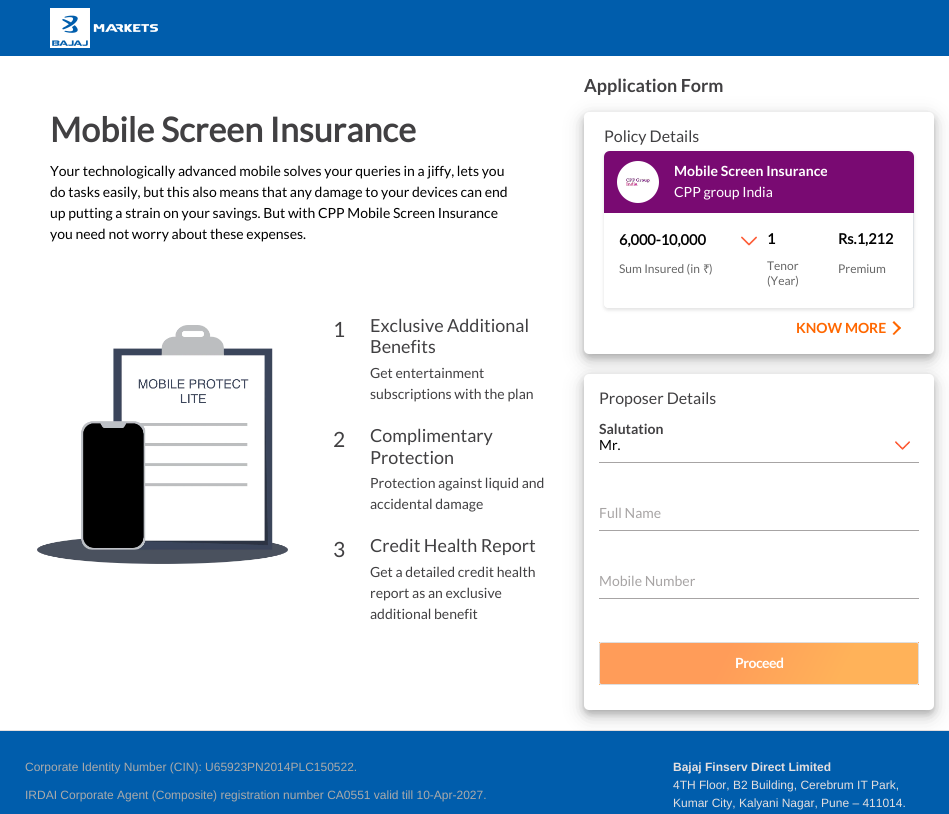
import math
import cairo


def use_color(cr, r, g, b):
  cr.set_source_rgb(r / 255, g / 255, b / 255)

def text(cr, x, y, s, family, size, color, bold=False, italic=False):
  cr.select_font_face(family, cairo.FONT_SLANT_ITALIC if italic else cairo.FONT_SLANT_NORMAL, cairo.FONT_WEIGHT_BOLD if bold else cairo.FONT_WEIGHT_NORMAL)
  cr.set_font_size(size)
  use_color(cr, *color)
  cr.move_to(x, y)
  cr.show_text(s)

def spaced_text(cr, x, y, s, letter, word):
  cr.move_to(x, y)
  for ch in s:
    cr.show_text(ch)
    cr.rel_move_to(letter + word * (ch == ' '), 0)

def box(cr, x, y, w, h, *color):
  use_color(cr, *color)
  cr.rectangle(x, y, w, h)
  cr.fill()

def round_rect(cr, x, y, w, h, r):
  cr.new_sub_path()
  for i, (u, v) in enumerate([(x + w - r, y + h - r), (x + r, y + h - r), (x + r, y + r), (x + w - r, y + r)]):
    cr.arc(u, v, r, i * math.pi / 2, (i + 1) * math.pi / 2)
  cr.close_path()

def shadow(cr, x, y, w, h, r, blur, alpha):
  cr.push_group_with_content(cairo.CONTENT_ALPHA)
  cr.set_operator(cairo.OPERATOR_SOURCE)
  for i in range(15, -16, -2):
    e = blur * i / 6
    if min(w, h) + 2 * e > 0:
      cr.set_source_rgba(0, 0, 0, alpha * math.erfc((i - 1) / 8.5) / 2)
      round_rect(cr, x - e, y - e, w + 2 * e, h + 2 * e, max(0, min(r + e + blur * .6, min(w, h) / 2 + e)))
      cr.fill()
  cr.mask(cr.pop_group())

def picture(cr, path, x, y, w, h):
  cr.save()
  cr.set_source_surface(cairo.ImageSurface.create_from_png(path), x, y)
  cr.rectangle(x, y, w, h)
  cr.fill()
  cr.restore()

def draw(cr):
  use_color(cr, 255, 255, 255)
  cr.paint()
  box(cr, 0, 0, 949, 56, 0, 93, 172)
  picture(cr, "img_01.png", 50, 8, 108, 40)
  picture(cr, "img_02.png", 37, 325, 251, 239)
  use_color(cr, 0, 0, 0)
  shadow(cr, 584, 118, 350, 242, 5, 10, 0.19)
  shadow(cr, 584, 116, 350, 242, 5, 4, 0.2)
  use_color(cr, 255, 255, 255)
  round_rect(cr, 584, 112, 350, 242, 5)
  cr.fill()
  cr.save()
  cr.set_fill_rule(cairo.FILL_RULE_EVEN_ODD)
  cr.new_path()
  cr.move_to(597, 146)
  cr.line_to(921, 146)
  cr.line_to(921, 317)
  cr.line_to(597, 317)
  cr.close_path()
  cr.move_to(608, 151)
  cr.line_to(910, 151)
  cr.curve_to(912, 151, 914, 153, 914, 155)
  cr.line_to(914, 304)
  cr.curve_to(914, 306, 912, 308, 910, 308)
  cr.line_to(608, 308)
  cr.curve_to(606, 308, 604, 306, 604, 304)
  cr.line_to(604, 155)
  cr.curve_to(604, 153, 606, 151, 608, 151)
  cr.close_path()
  cr.clip()
  use_color(cr, 0, 0, 0)
  shadow(cr, 604, 153, 310, 157, 4, 2, 0.12)
  cr.restore()
  use_color(cr, 121, 10, 114)
  cr.new_path()
  cr.move_to(610, 151)
  cr.line_to(908, 151)
  cr.curve_to(911.5, 151, 914, 153.5, 914, 157)
  cr.line_to(914, 213)
  cr.line_to(604, 213)
  cr.line_to(604, 157)
  cr.curve_to(604, 153.5, 606.5, 151, 610, 151)
  cr.close_path()
  cr.fill()
  use_color(cr, 255, 255, 255)
  cr.arc(638, 182, 18.5, 0, 2 * math.pi)
  cr.fill_preserve()
  cr.set_line_width(5)
  cr.stroke()
  picture(cr, "img_03.png", 626, 178, 25, 8)
  box(cr, 913, 213, 1, 95, 222, 226, 230)
  picture(cr, "img_04.png", 741, 236, 16, 10)
  use_color(cr, 255, 103, 0)
  cr.new_path()
  cr.move_to(892.5, 322.5)
  cr.line_to(894, 321)
  cr.line_to(901, 328)
  cr.line_to(899.5, 329.5)
  cr.close_path()
  cr.fill()
  cr.new_path()
  cr.move_to(892.5, 334)
  cr.line_to(899.5, 326.5)
  cr.line_to(901, 328)
  cr.line_to(894, 335)
  cr.close_path()
  cr.fill()
  box(cr, 0, 731, 949, 83, 0, 93, 172)
  box(cr, 0, 730, 949, 1, 228, 223, 223)
  use_color(cr, 0, 0, 0)
  shadow(cr, 584, 380, 350, 336, 5, 10, 0.19)
  shadow(cr, 584, 378, 350, 336, 5, 4, 0.2)
  use_color(cr, 255, 255, 255)
  round_rect(cr, 584, 374, 350, 336, 5)
  cr.fill()
  picture(cr, "img_05.png", 895, 441, 15, 9)
  box(cr, 599, 462, 320, 1, 167, 164, 164)
  box(cr, 599, 530, 320, 1, 167, 164, 164)
  box(cr, 599, 598, 320, 1, 167, 164, 164)
  gradient = cairo.LinearGradient(306, 554, 576, 691)
  gradient.add_color_stop_rgba(0.39, 1, 0.612, 0.349, 1)
  gradient.add_color_stop_rgba(0.76, 1, 0.698, 0.349, 1)
  cr.set_source(gradient)
  cr.rectangle(599, 642, 1, 1)
  cr.fill()
  gradient = cairo.LinearGradient(942, 554, 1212, 691)
  gradient.add_color_stop_rgba(0.39, 1, 0.612, 0.349, 1)
  gradient.add_color_stop_rgba(0.76, 1, 0.698, 0.349, 1)
  cr.set_source(gradient)
  cr.rectangle(918, 642, 1, 1)
  cr.fill()
  gradient = cairo.LinearGradient(624, 595, 894, 732)
  gradient.add_color_stop_rgba(0.39, 1, 0.612, 0.349, 1)
  gradient.add_color_stop_rgba(0.76, 1, 0.698, 0.349, 1)
  cr.set_source(gradient)
  cr.rectangle(600, 643, 318, 41)
  cr.fill()
  gradient = cairo.LinearGradient(306, 636, 576, 773)
  gradient.add_color_stop_rgba(0.39, 1, 0.612, 0.349, 1)
  gradient.add_color_stop_rgba(0.76, 1, 0.698, 0.349, 1)
  cr.set_source(gradient)
  cr.rectangle(599, 684, 1, 1)
  cr.fill()
  gradient = cairo.LinearGradient(942, 636, 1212, 773)
  gradient.add_color_stop_rgba(0.39, 1, 0.612, 0.349, 1)
  gradient.add_color_stop_rgba(0.76, 1, 0.698, 0.349, 1)
  cr.set_source(gradient)
  cr.rectangle(918, 684, 1, 1)
  cr.fill()
  round_rect(cr, 599.5, 642.5, 319, 42, 2)
  use_color(cr, 222, 222, 222)
  cr.set_line_width(1)
  cr.stroke()
  text(cr, 50, 142, "Mobile Screen Insurance", "Lato", 34, (65, 64, 66), bold=True)
  text(cr, 50, 176, "Your technologically advanced mobile solves your queries in a jiffy, lets you", "Lato", 14, (0, 0, 0))
  text(cr, 50, 197, "do tasks easily, but this also means that any damage to your devices can end", "Lato", 14, (0, 0, 0))
  text(cr, 50, 218, "up putting a strain on your savings. But with CPP Mobile Screen Insurance", "Lato", 14, (0, 0, 0))
  text(cr, 50, 239, "you need not worry about these expenses.", "Lato", 14, (0, 0, 0))
  text(cr, 333, 337, "1", "Lato", 21, (65, 64, 66))
  text(cr, 370, 332, "Exclusive Additional", "Lato", 18, (65, 64, 66))
  text(cr, 370, 353, "Benefits", "Lato", 18, (65, 64, 66))
  text(cr, 370, 378, "Get entertainment", "Lato", 14, (65, 64, 66))
  text(cr, 370, 399, "subscriptions with the plan", "Lato", 14, (65, 64, 66))
  text(cr, 333, 447, "2", "Lato", 21, (65, 64, 66))
  text(cr, 370, 442, "Complimentary", "Lato", 18, (65, 64, 66))
  text(cr, 370, 464, "Protection", "Lato", 18, (65, 64, 66))
  text(cr, 370, 488, "Protection against liquid and", "Lato", 14, (65, 64, 66))
  text(cr, 370, 509, "accidental damage", "Lato", 14, (65, 64, 66))
  text(cr, 333, 557, "3", "Lato", 21, (65, 64, 66))
  text(cr, 370, 552, "Credit Health Report", "Lato", 18, (65, 64, 66))
  text(cr, 370, 577, "Get a detailed credit health", "Lato", 14, (65, 64, 66))
  text(cr, 370, 598, "report as an exclusive", "Lato", 14, (65, 64, 66))
  text(cr, 370, 619, "additional benefit", "Lato", 14, (65, 64, 66))
  text(cr, 584, 92, "Application Form", "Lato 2", 18, (65, 64, 66), bold=True)
  text(cr, 604, 142, "Policy Details", "Lato", 16, (65, 64, 66))
  text(cr, 674, 176, "Mobile Screen Insurance", "Lato 2", 14, (255, 255, 255), bold=True)
  text(cr, 674, 197, "CPP group India", "Lato", 14, (255, 255, 255))
  text(cr, 619, 245, "6,000-10,000", "Lato", 14.5, (0, 0, 0), bold=True)
  text(cr, 619, 273, "Sum Insured (in", "Lato", 12, (102, 102, 102))
  text(cr, 703, 273, "₹", "Noto Sans", 12, (102, 102, 102))
  text(cr, 709, 273, ")", "Lato", 12, (102, 102, 102))
  text(cr, 767, 244, "1", "Lato", 14.5, (0, 0, 0), bold=True)
  text(cr, 767, 270, "Tenor", "Lato", 12, (102, 102, 102))
  text(cr, 767, 285, "(Year)", "Lato", 12, (102, 102, 102))
  text(cr, 838, 244, "Rs.1,212", "Lato", 14.5, (0, 0, 0), bold=True)
  text(cr, 838, 273, "Premium", "Lato", 12, (102, 102, 102))
  text(cr, 796, 333, "KNOW MORE", "Lato 2", 14, (255, 103, 0), bold=True)
  text(cr, 599, 404, "Proposer Details", "Lato", 16, (65, 64, 66))
  text(cr, 599, 434, "Salutation", "Lato 2", 14, (65, 64, 66), bold=True)
  text(cr, 599, 450, "Mr.", "Lato", 14, (0, 0, 0))
  text(cr, 599, 518, "Full Name", "Lato", 14, (167, 164, 164))
  text(cr, 599, 586, "Mobile Number", "Lato", 14, (167, 164, 164))
  cr.select_font_face("Lato 2", cairo.FONT_SLANT_NORMAL, cairo.FONT_WEIGHT_BOLD)
  use_color(cr, 255, 255, 255)
  spaced_text(cr, 735, 668, "Proceed", -0.5, 0)
  text(cr, 25, 771, "Corporate Identity Number (CIN): U65923PN2014PLC150522.", "Liberation Sans", 12, (170, 170, 170))
  text(cr, 25, 799, "IRDAI Corporate Agent (Composite) registration number CA0551 valid till 10-Apr-2027.", "Liberation Sans", 12, (170, 170, 170))
  text(cr, 673, 771, "Bajaj Finserv Direct Limited", "Liberation Sans", 12, (228, 223, 223), bold=True)
  text(cr, 673, 789, "4TH Floor, B2 Building, Cerebrum IT Park,", "Liberation Sans", 12, (228, 223, 223))
  text(cr, 673, 807, "Kumar City, Kalyani Nagar, Pune – 411014.", "Liberation Sans", 12, (228, 223, 223))


surface = cairo.ImageSurface(cairo.FORMAT_RGB24, 949, 814)
cr = cairo.Context(surface)
options = cairo.FontOptions()
options.set_hint_metrics(cairo.HINT_METRICS_OFF)
options.set_hint_style(cairo.HINT_STYLE_NONE)
cr.set_font_options(options)
cr.set_miter_limit(4)
draw(cr)
surface.write_to_png("out.png")
